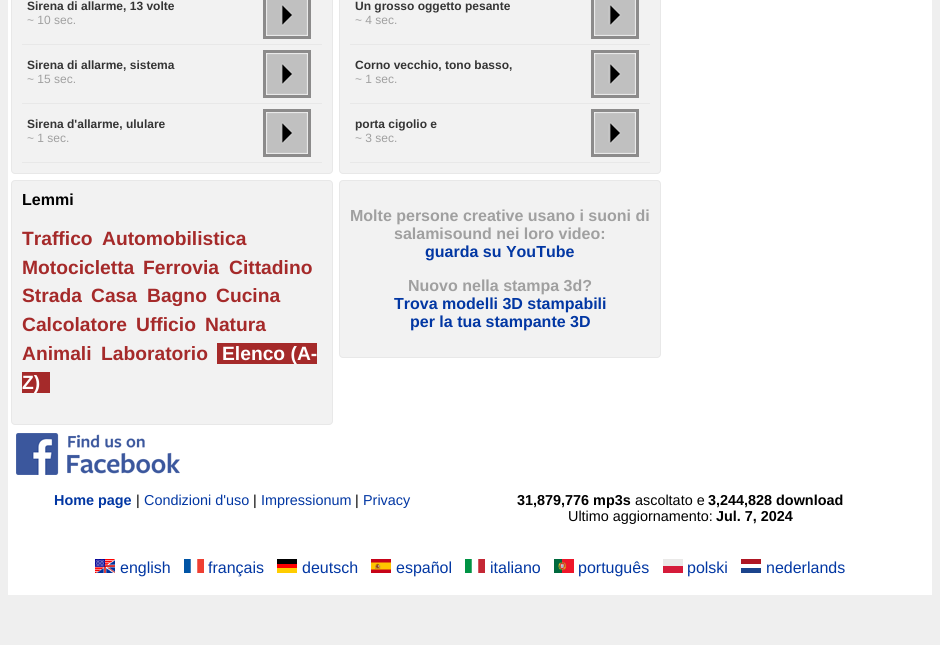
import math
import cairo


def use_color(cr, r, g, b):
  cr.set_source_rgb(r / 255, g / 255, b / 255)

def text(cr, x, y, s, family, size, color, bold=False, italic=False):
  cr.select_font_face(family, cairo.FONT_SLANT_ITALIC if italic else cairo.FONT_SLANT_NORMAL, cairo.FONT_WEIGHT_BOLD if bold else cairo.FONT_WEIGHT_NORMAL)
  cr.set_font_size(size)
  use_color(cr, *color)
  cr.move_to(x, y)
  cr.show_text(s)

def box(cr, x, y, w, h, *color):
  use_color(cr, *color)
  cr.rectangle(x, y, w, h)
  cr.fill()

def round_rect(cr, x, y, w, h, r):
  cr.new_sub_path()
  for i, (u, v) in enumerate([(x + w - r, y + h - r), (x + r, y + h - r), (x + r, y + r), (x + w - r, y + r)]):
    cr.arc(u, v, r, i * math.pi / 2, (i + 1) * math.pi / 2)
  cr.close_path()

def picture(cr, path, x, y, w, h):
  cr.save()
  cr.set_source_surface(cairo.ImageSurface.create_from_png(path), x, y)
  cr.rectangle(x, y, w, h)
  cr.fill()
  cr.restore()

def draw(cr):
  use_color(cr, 239, 239, 239)
  cr.paint()
  box(cr, 8, 0, 924, 595, 255, 255, 255)
  use_color(cr, 242, 242, 242)
  round_rect(cr, 11.5, -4.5, 321, 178, 3.5)
  cr.fill_preserve()
  use_color(cr, 232, 232, 232)
  cr.set_line_width(1)
  cr.stroke()
  box(cr, 22, 44, 300, 1, 232, 232, 232)
  picture(cr, "img_01.png", 263, 0, 48, 39)
  box(cr, 22, 103, 300, 1, 232, 232, 232)
  picture(cr, "img_02.png", 263, 50, 48, 48)
  box(cr, 22, 162, 300, 1, 232, 232, 232)
  picture(cr, "img_02.png", 263, 109, 48, 48)
  use_color(cr, 242, 242, 242)
  round_rect(cr, 339.5, -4.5, 321, 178, 3.5)
  cr.fill_preserve()
  use_color(cr, 232, 232, 232)
  cr.stroke()
  box(cr, 350, 44, 300, 1, 232, 232, 232)
  picture(cr, "img_01.png", 591, 0, 48, 39)
  box(cr, 350, 103, 300, 1, 232, 232, 232)
  picture(cr, "img_02.png", 591, 50, 48, 48)
  box(cr, 350, 162, 300, 1, 232, 232, 232)
  picture(cr, "img_02.png", 591, 109, 48, 48)
  use_color(cr, 242, 242, 242)
  round_rect(cr, 11.5, 180.5, 321, 244, 3.5)
  cr.fill_preserve()
  use_color(cr, 232, 232, 232)
  cr.stroke()
  box(cr, 217, 343, 100, 21, 165, 42, 42)
  box(cr, 22, 372, 28, 21, 165, 42, 42)
  use_color(cr, 242, 242, 242)
  round_rect(cr, 339.5, 180.5, 321, 177, 3.5)
  cr.fill_preserve()
  use_color(cr, 232, 232, 232)
  cr.stroke()
  picture(cr, "img_03.png", 16, 433, 164, 42)
  picture(cr, "img_04.png", 95, 559, 20, 14)
  picture(cr, "img_05.png", 184, 559, 20, 14)
  picture(cr, "img_06.png", 277, 559, 20, 14)
  picture(cr, "img_07.png", 371, 559, 20, 14)
  picture(cr, "img_08.png", 465, 559, 20, 14)
  picture(cr, "img_09.png", 554, 559, 20, 14)
  picture(cr, "img_10.png", 663, 559, 20, 14)
  picture(cr, "img_11.png", 741, 559, 20, 14)
  text(cr, 27, 10, "Sirena di allarme, 13 volte", "Liberation Sans", 12, (52, 52, 52), bold=True)
  text(cr, 27, 24, "~ 10 sec.", "Liberation Sans", 12, (160, 160, 160))
  text(cr, 27, 69, "Sirena di allarme, sistema", "Liberation Sans", 12, (52, 52, 52), bold=True)
  text(cr, 27, 83, "~ 15 sec.", "Liberation Sans", 12, (160, 160, 160))
  text(cr, 27, 128, "Sirena d'allarme, ululare", "Liberation Sans", 12, (52, 52, 52), bold=True)
  text(cr, 27, 142, "~ 1 sec.", "Liberation Sans", 12, (160, 160, 160))
  text(cr, 355, 10, "Un grosso oggetto pesante", "Liberation Sans", 12, (52, 52, 52), bold=True)
  text(cr, 355, 24, "~ 4 sec.", "Liberation Sans", 12, (160, 160, 160))
  text(cr, 355, 69, "Corno vecchio, tono basso,", "Liberation Sans", 12, (52, 52, 52), bold=True)
  text(cr, 355, 83, "~ 1 sec.", "Liberation Sans", 12, (160, 160, 160))
  text(cr, 355, 128, "porta cigolio e", "Liberation Sans", 12, (52, 52, 52), bold=True)
  text(cr, 355, 142, "~ 3 sec.", "Liberation Sans", 12, (160, 160, 160))
  text(cr, 22, 205, "Lemmi", "Liberation Sans", 16, (0, 0, 0), bold=True)
  text(cr, 22, 245, "Traffico", "Liberation Sans", 19.25, (165, 42, 42), bold=True)
  text(cr, 102, 245, "Automobilistica", "Liberation Sans", 19.25, (165, 42, 42), bold=True)
  text(cr, 22, 274, "Motocicletta", "Liberation Sans", 19.25, (165, 42, 42), bold=True)
  text(cr, 143, 274, "Ferrovia", "Liberation Sans", 19.25, (165, 42, 42), bold=True)
  text(cr, 229, 274, "Cittadino", "Liberation Sans", 19.25, (165, 42, 42), bold=True)
  text(cr, 22, 302, "Strada", "Liberation Sans", 19.25, (165, 42, 42), bold=True)
  text(cr, 91, 302, "Casa", "Liberation Sans", 19.25, (165, 42, 42), bold=True)
  text(cr, 147, 302, "Bagno", "Liberation Sans", 19.25, (165, 42, 42), bold=True)
  text(cr, 216, 302, "Cucina", "Liberation Sans", 19.25, (165, 42, 42), bold=True)
  text(cr, 22, 331, "Calcolatore", "Liberation Sans", 19.25, (165, 42, 42), bold=True)
  text(cr, 136, 331, "Ufficio", "Liberation Sans", 19.25, (165, 42, 42), bold=True)
  text(cr, 205, 331, "Natura", "Liberation Sans", 19.25, (165, 42, 42), bold=True)
  text(cr, 22, 360, "Animali", "Liberation Sans", 19.25, (165, 42, 42), bold=True)
  text(cr, 101, 360, "Laboratorio", "Liberation Sans", 19.25, (165, 42, 42), bold=True)
  text(cr, 222, 360, "Elenco (A-", "Liberation Sans", 19.25, (255, 255, 255), bold=True)
  text(cr, 22, 389, "Z)", "Liberation Sans", 19.25, (255, 255, 255), bold=True)
  text(cr, 350, 221, "Molte persone creative usano i suoni di", "Liberation Sans", 16, (160, 160, 160), bold=True)
  text(cr, 394, 239, "salamisound nei loro video:", "Liberation Sans", 16, (160, 160, 160), bold=True)
  text(cr, 425, 257, "guarda su YouTube", "Liberation Sans", 16, (2, 55, 163), bold=True)
  text(cr, 408, 291, "Nuovo nella stampa 3d?", "Liberation Sans", 16, (160, 160, 160), bold=True)
  text(cr, 394, 309, "Trova modelli 3D stampabili", "Liberation Sans", 16, (2, 55, 163), bold=True)
  text(cr, 410, 327, "per la tua stampante 3D", "Liberation Sans", 16, (2, 55, 163), bold=True)
  text(cr, 54, 505, "Home page", "Liberation Sans", 14.4, (2, 55, 163), bold=True)
  text(cr, 136, 505, "|", "Liberation Sans", 14.4, (0, 0, 0))
  text(cr, 144, 505, "Condizioni d'uso", "Liberation Sans", 14.4, (2, 55, 163))
  text(cr, 253, 505, "|", "Liberation Sans", 14.4, (0, 0, 0))
  text(cr, 261, 505, "Impressionum", "Liberation Sans", 14.4, (2, 55, 163))
  text(cr, 355, 505, "|", "Liberation Sans", 14.4, (0, 0, 0))
  text(cr, 363, 505, "Privacy", "Liberation Sans", 14.4, (2, 55, 163))
  text(cr, 517, 505, "31,879,776 mp3s", "Liberation Sans", 14.4, (0, 0, 0), bold=True)
  text(cr, 635, 505, "ascoltato e", "Liberation Sans", 14.4, (0, 0, 0))
  text(cr, 708, 505, "3,244,828 download", "Liberation Sans", 14.4, (0, 0, 0), bold=True)
  text(cr, 568, 521, "Ultimo aggiornamento:", "Liberation Sans", 14.4, (0, 0, 0))
  text(cr, 716, 521, "Jul. 7, 2024", "Liberation Sans", 14.4, (0, 0, 0), bold=True)
  text(cr, 120, 573, "english", "Liberation Sans", 16, (2, 55, 163))
  text(cr, 208, 573, "français", "Liberation Sans", 16, (2, 55, 163))
  text(cr, 302, 573, "deutsch", "Liberation Sans", 16, (2, 55, 163))
  text(cr, 396, 573, "español", "Liberation Sans", 16, (2, 55, 163))
  text(cr, 490, 573, "italiano", "Liberation Sans", 16, (2, 55, 163))
  text(cr, 578, 573, "português", "Liberation Sans", 16, (2, 55, 163))
  text(cr, 687, 573, "polski", "Liberation Sans", 16, (2, 55, 163))
  text(cr, 766, 573, "nederlands", "Liberation Sans", 16, (2, 55, 163))


surface = cairo.ImageSurface(cairo.FORMAT_RGB24, 940, 645)
cr = cairo.Context(surface)
options = cairo.FontOptions()
options.set_hint_metrics(cairo.HINT_METRICS_OFF)
options.set_hint_style(cairo.HINT_STYLE_NONE)
cr.set_font_options(options)
cr.set_miter_limit(4)
draw(cr)
surface.write_to_png("out.png")
